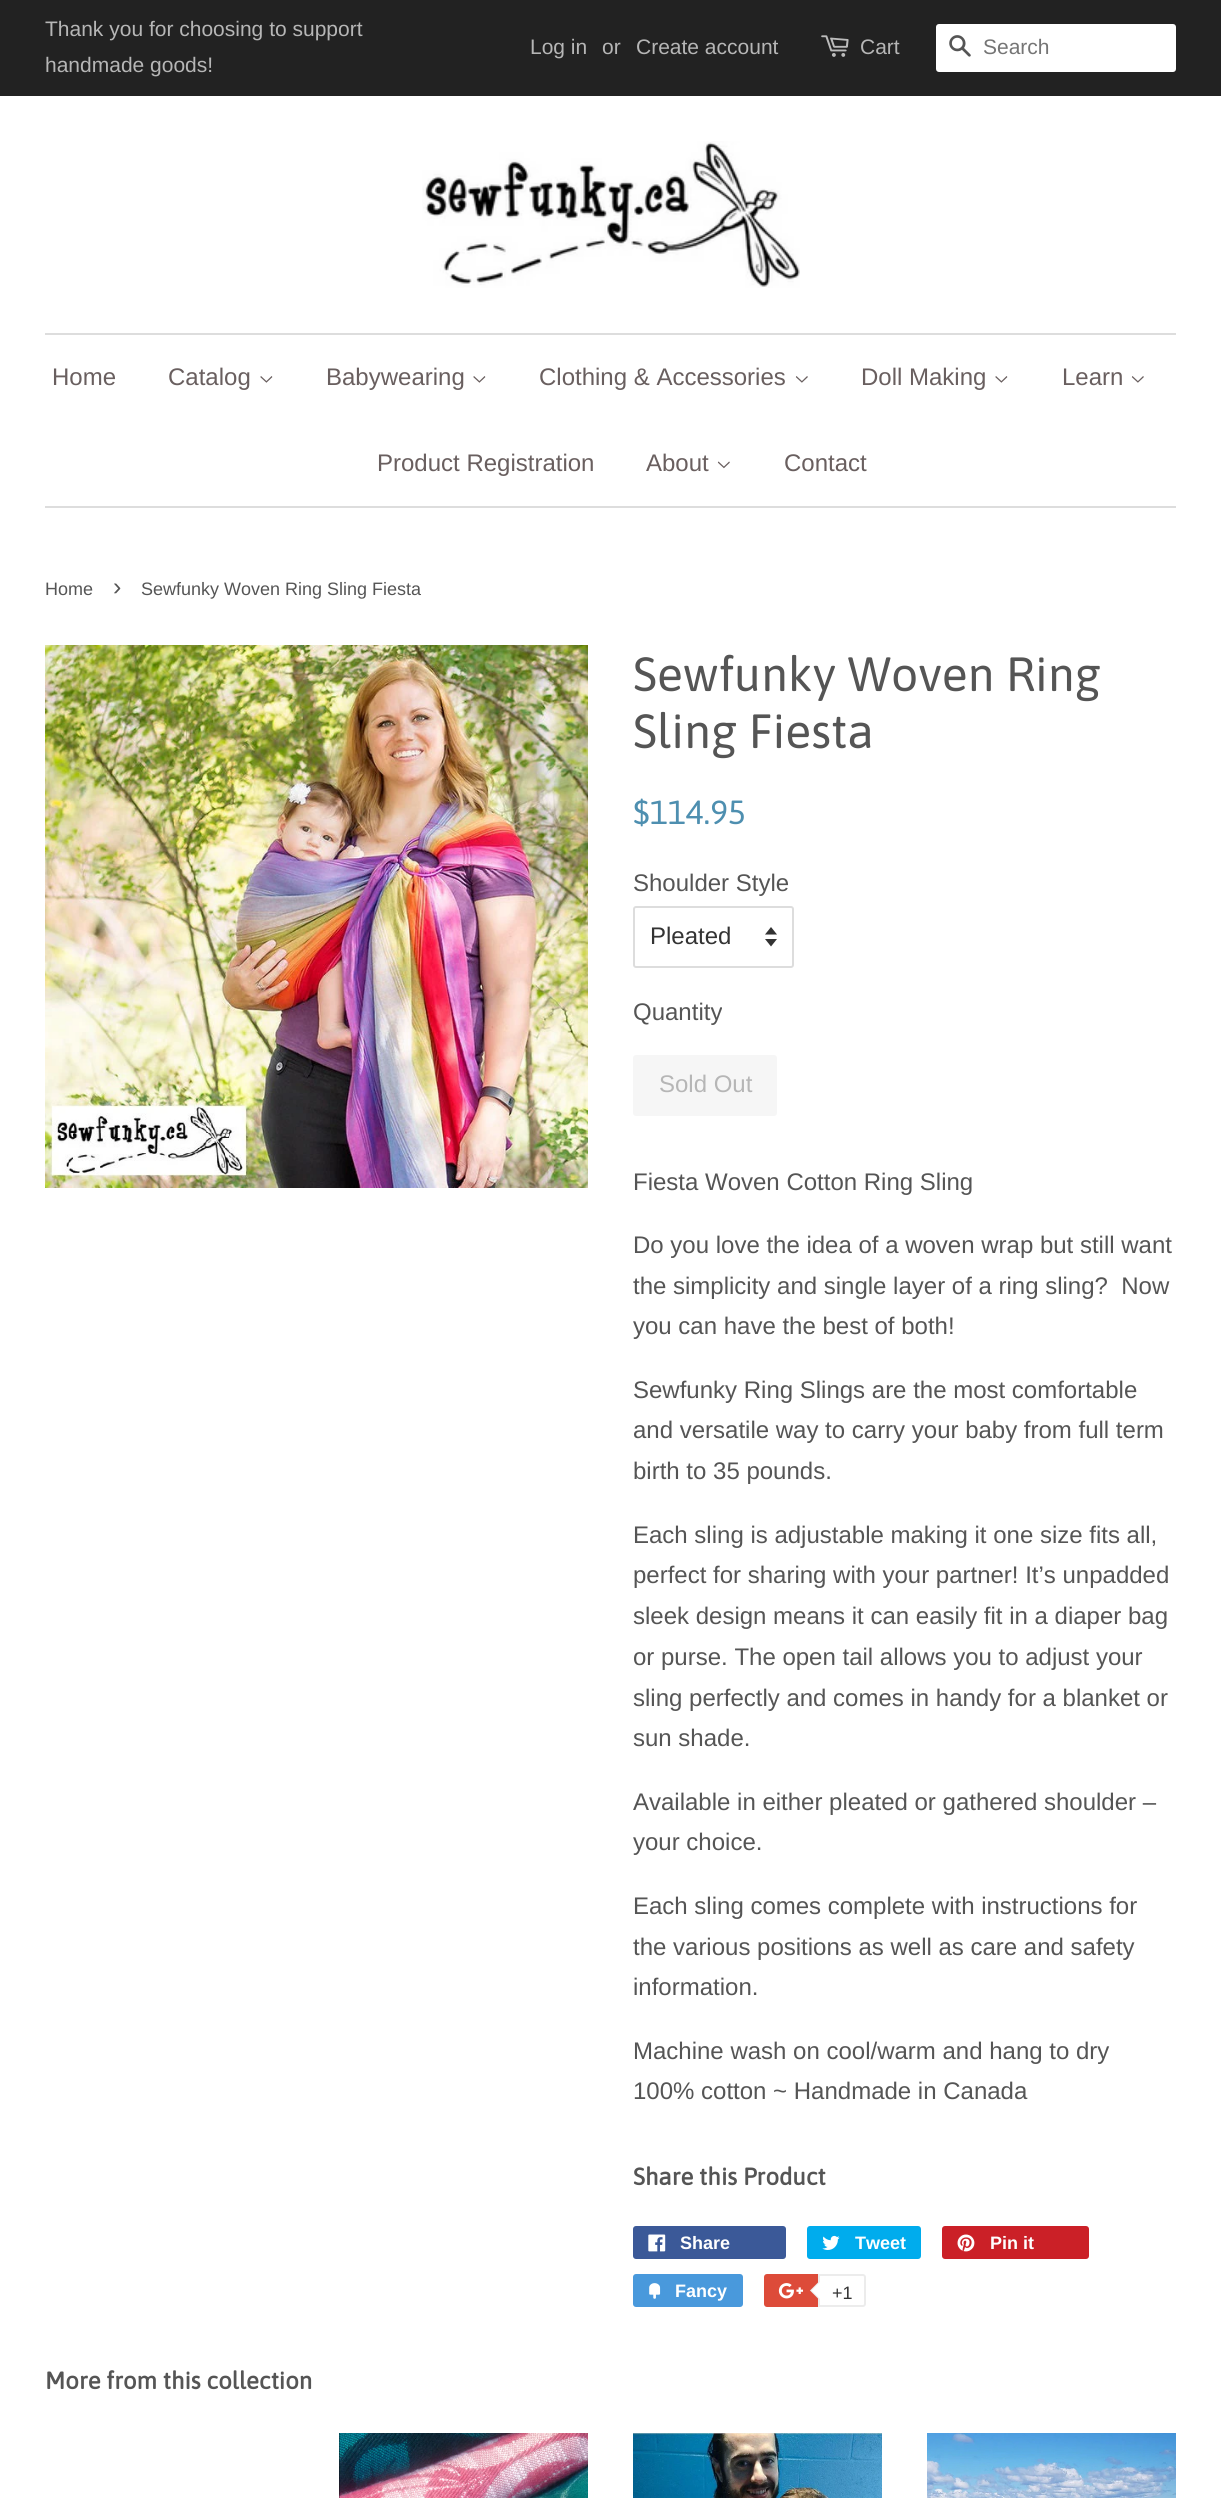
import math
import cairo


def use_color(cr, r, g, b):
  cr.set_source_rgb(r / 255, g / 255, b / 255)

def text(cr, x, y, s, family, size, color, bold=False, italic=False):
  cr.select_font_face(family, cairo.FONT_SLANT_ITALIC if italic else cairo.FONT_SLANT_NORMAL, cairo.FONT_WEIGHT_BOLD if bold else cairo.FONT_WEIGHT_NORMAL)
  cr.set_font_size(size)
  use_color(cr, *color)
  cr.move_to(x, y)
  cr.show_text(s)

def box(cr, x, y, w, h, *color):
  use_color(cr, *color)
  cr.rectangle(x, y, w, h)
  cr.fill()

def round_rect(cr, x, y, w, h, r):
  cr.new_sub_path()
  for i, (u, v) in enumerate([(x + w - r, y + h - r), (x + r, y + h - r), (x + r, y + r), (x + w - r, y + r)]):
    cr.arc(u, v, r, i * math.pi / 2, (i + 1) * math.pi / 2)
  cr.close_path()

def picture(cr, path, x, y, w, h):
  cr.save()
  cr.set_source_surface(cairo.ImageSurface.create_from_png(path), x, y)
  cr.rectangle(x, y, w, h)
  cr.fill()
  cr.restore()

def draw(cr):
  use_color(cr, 255, 255, 255)
  cr.paint()
  box(cr, 0, 0, 1221, 96, 34, 34, 34)
  picture(cr, "img_01.png", 821, 35, 28, 22)
  use_color(cr, 255, 255, 255)
  round_rect(cr, 936, 24, 240, 48, 3)
  cr.fill()
  picture(cr, "img_02.png", 949, 35, 22, 22)
  picture(cr, "img_03.png", 422, 141, 378, 147)
  box(cr, 45, 333, 1131, 2, 221, 221, 221)
  box(cr, 45, 506, 1131, 2, 221, 221, 221)
  picture(cr, "img_04.png", 260, 376, 13, 7)
  picture(cr, "img_04.png", 473, 376, 13, 7)
  picture(cr, "img_05.png", 795, 376, 13, 7)
  picture(cr, "img_04.png", 995, 376, 13, 7)
  picture(cr, "img_05.png", 1131, 376, 13, 7)
  picture(cr, "img_06.png", 717, 461, 13, 8)
  picture(cr, "img_07.png", 45, 645, 543, 543)
  picture(cr, "img_08.png", 765, 927, 12, 20)
  round_rect(cr, 634, 907, 159, 60, 2)
  cr.stroke()
  use_color(cr, 246, 246, 246)
  round_rect(cr, 633, 1055, 144, 61, 3)
  cr.fill()
  use_color(cr, 59, 89, 152)
  round_rect(cr, 633, 2226, 153, 33, 3)
  cr.fill()
  picture(cr, "img_09.png", 648, 2234, 18, 18)
  use_color(cr, 0, 172, 237)
  round_rect(cr, 807, 2226, 114, 33, 3)
  cr.fill()
  picture(cr, "img_10.png", 822, 2235, 18, 15)
  use_color(cr, 203, 32, 39)
  round_rect(cr, 942, 2226, 147, 33, 3)
  cr.fill()
  picture(cr, "img_11.png", 957, 2234, 18, 18)
  use_color(cr, 73, 153, 220)
  round_rect(cr, 633, 2274, 110, 33, 3)
  cr.fill()
  picture(cr, "img_12.png", 649, 2283, 12, 16)
  use_color(cr, 221, 75, 57)
  round_rect(cr, 764, 2274, 99, 33, 3)
  cr.fill()
  picture(cr, "img_13.png", 778, 2283, 25, 16)
  use_color(cr, 255, 255, 255)
  cr.new_path()
  cr.move_to(819, 2275)
  cr.line_to(863, 2275)
  cr.curve_to(864, 2275, 865, 2276, 865, 2277)
  cr.line_to(865, 2304)
  cr.curve_to(865, 2305, 864, 2306, 863, 2306)
  cr.line_to(819, 2306)
  cr.close_path()
  cr.fill_preserve()
  use_color(cr, 236, 236, 236)
  cr.stroke()
  cr.new_path()
  cr.move_to(819, 2281.5)
  cr.line_to(819, 2299.5)
  cr.line_to(810, 2290.5)
  cr.close_path()
  cr.fill()
  use_color(cr, 255, 255, 255)
  cr.new_path()
  cr.move_to(820.5, 2281.5)
  cr.line_to(820.5, 2299.5)
  cr.line_to(811.5, 2290.5)
  cr.close_path()
  cr.fill()
  picture(cr, "img_14.png", 339, 2433, 249, 65)
  picture(cr, "img_15.png", 633, 2433, 249, 65)
  picture(cr, "img_16.png", 927, 2433, 249, 65)
  text(cr, 45, 36, "Thank you for choosing to support", "Liberation Sans", 21, (182, 182, 182))
  text(cr, 45, 72, "handmade goods!", "Liberation Sans", 21, (182, 182, 182))
  text(cr, 530, 54, "Log in", "Liberation Sans", 21, (182, 182, 182))
  text(cr, 602, 54, "or", "Liberation Sans", 21, (182, 182, 182))
  text(cr, 636, 54, "Create account", "Liberation Sans", 21, (182, 182, 182))
  text(cr, 860, 54, "Cart", "Liberation Sans", 21, (182, 182, 182))
  text(cr, 983, 54, "Search", "Liberation Sans", 21, (117, 117, 117))
  text(cr, 52, 385, "Home", "Liberation Sans", 24, (105, 95, 95))
  text(cr, 168, 385, "Catalog", "Liberation Sans", 24, (105, 95, 95))
  text(cr, 326, 385, "Babywearing", "Liberation Sans", 24, (105, 95, 95))
  text(cr, 539, 385, "Clothing & Accessories", "Liberation Sans", 24, (105, 95, 95))
  text(cr, 861, 385, "Doll Making", "Liberation Sans", 24, (105, 95, 95))
  text(cr, 1062, 385, "Learn", "Liberation Sans", 24, (105, 95, 95))
  text(cr, 377, 471, "Product Registration", "Liberation Sans", 24, (105, 95, 95))
  text(cr, 646, 471, "About", "Liberation Sans", 24, (105, 95, 95))
  text(cr, 784, 471, "Contact", "Liberation Sans", 24, (105, 95, 95))
  text(cr, 45, 595, "Home", "Liberation Sans", 18, (85, 85, 85))
  text(cr, 113, 595, "›", "Liberation Sans", 25, (85, 85, 85))
  text(cr, 141, 595, "Sewfunky Woven Ring Sling Fiesta", "Liberation Sans", 18, (85, 85, 85))
  text(cr, 633, 691, "Sewfunky Woven Ring", "Asap", 48, (85, 85, 85))
  text(cr, 633, 748, "Sling Fiesta", "Asap", 48, (85, 85, 85))
  text(cr, 633, 824, "$114.95", "Asap", 33.5, (78, 143, 176))
  text(cr, 633, 891, "Shoulder Style", "Liberation Sans", 24, (85, 85, 85))
  text(cr, 650, 944, "Pleated", "Liberation Sans", 24, (51, 51, 51))
  text(cr, 633, 1020, "Quantity", "Liberation Sans", 24, (85, 85, 85))
  text(cr, 659, 1092, "Sold Out", "Liberation Sans", 24, (182, 182, 182))
  text(cr, 633, 1190, "Fiesta Woven Cotton Ring Sling", "Liberation Sans", 24, (85, 85, 85))
  text(cr, 633, 1253, "Do you love the idea of a woven wrap but still want", "Liberation Sans", 24, (85, 85, 85))
  text(cr, 633, 1294, "the simplicity and single layer of a ring sling?  Now", "Liberation Sans", 24, (85, 85, 85))
  text(cr, 633, 1334, "you can have the best of both!", "Liberation Sans", 24, (85, 85, 85))
  text(cr, 633, 1398, "Sewfunky Ring Slings are the most comfortable", "Liberation Sans", 24, (85, 85, 85))
  text(cr, 633, 1438, "and versatile way to carry your baby from full term", "Liberation Sans", 24, (85, 85, 85))
  text(cr, 633, 1479, "birth to 35 pounds.", "Liberation Sans", 24, (85, 85, 85))
  text(cr, 633, 1543, "Each sling is adjustable making it one size fits all,", "Liberation Sans", 24, (85, 85, 85))
  text(cr, 633, 1583, "perfect for sharing with your partner! It’s unpadded", "Liberation Sans", 24, (85, 85, 85))
  text(cr, 633, 1624, "sleek design means it can easily fit in a diaper bag", "Liberation Sans", 24, (85, 85, 85))
  text(cr, 633, 1665, "or purse. The open tail allows you to adjust your", "Liberation Sans", 24, (85, 85, 85))
  text(cr, 633, 1706, "sling perfectly and comes in handy for a blanket or", "Liberation Sans", 24, (85, 85, 85))
  text(cr, 633, 1746, "sun shade.", "Liberation Sans", 24, (85, 85, 85))
  text(cr, 633, 1810, "Available in either pleated or gathered shoulder –", "Liberation Sans", 24, (85, 85, 85))
  text(cr, 633, 1850, "your choice.", "Liberation Sans", 24, (85, 85, 85))
  text(cr, 633, 1914, "Each sling comes complete with instructions for", "Liberation Sans", 24, (85, 85, 85))
  text(cr, 633, 1955, "the various positions as well as care and safety", "Liberation Sans", 24, (85, 85, 85))
  text(cr, 633, 1995, "information.", "Liberation Sans", 24, (85, 85, 85))
  text(cr, 633, 2059, "Machine wash on cool/warm and hang to dry", "Liberation Sans", 24, (85, 85, 85))
  text(cr, 633, 2099, "100% cotton ~ Handmade in Canada", "Liberation Sans", 24, (85, 85, 85))
  text(cr, 633, 2185, "Share this Product", "Asap", 24, (85, 85, 85), bold=True)
  text(cr, 680, 2249, "Share", "Liberation Sans", 18, (255, 255, 255), bold=True)
  text(cr, 855, 2249, "Tweet", "Liberation Sans", 18, (255, 255, 255), bold=True)
  text(cr, 990, 2249, "Pin it", "Liberation Sans", 18, (255, 255, 255), bold=True)
  text(cr, 675, 2297, "Fancy", "Liberation Sans", 18, (255, 255, 255), bold=True)
  text(cr, 832, 2299, "+1", "Liberation Sans", 18, (51, 51, 51))
  text(cr, 45, 2389, "More from this collection", "Asap", 24, (85, 85, 85), bold=True)


surface = cairo.ImageSurface(cairo.FORMAT_RGB24, 1221, 2498)
cr = cairo.Context(surface)
options = cairo.FontOptions()
options.set_hint_metrics(cairo.HINT_METRICS_OFF)
options.set_hint_style(cairo.HINT_STYLE_NONE)
cr.set_font_options(options)
cr.set_miter_limit(4)
draw(cr)
surface.write_to_png("out.png")
